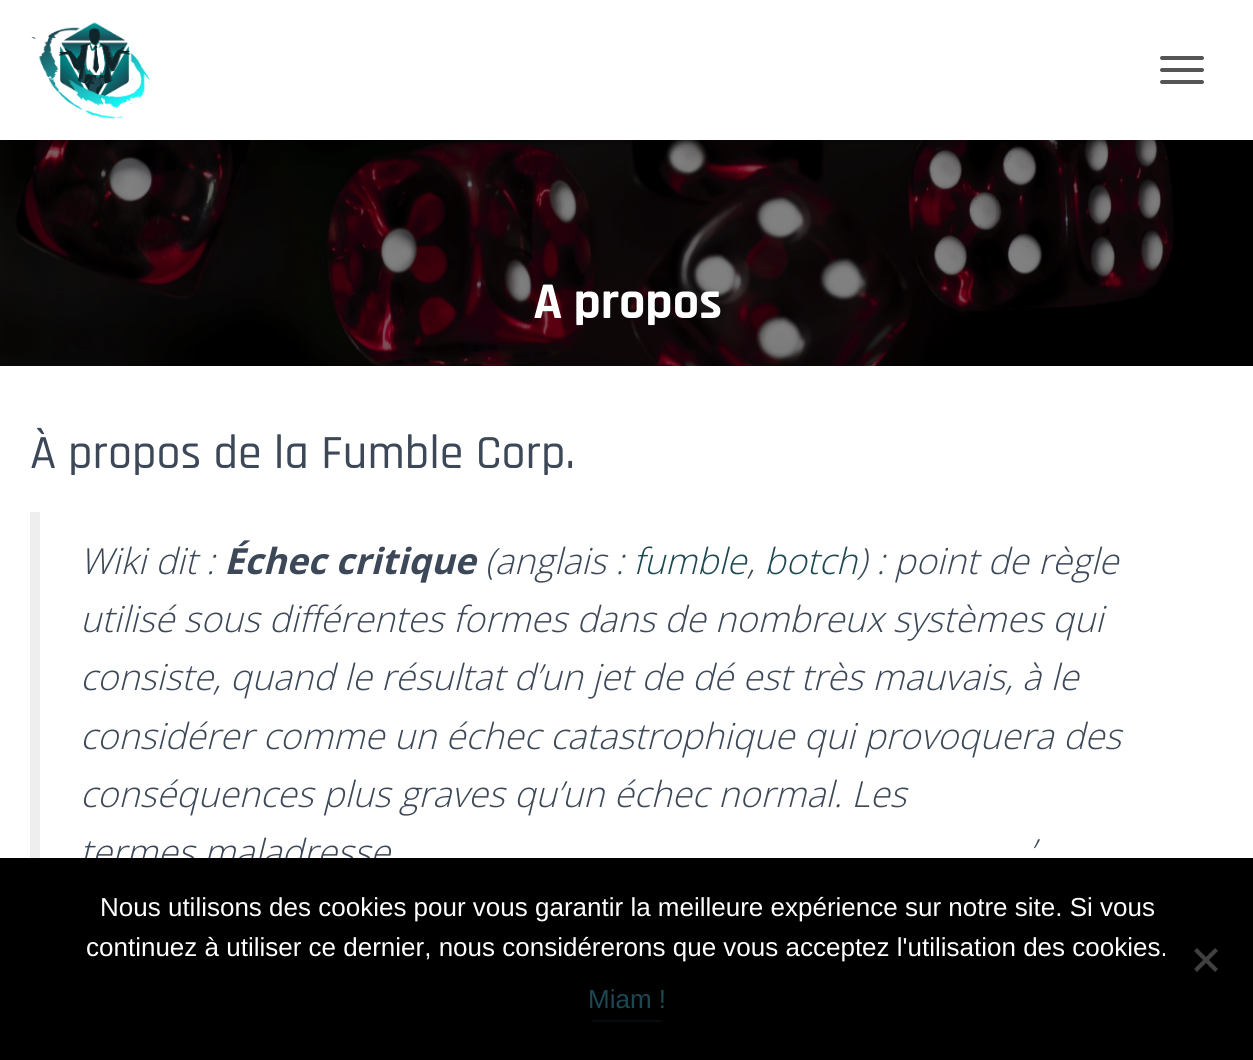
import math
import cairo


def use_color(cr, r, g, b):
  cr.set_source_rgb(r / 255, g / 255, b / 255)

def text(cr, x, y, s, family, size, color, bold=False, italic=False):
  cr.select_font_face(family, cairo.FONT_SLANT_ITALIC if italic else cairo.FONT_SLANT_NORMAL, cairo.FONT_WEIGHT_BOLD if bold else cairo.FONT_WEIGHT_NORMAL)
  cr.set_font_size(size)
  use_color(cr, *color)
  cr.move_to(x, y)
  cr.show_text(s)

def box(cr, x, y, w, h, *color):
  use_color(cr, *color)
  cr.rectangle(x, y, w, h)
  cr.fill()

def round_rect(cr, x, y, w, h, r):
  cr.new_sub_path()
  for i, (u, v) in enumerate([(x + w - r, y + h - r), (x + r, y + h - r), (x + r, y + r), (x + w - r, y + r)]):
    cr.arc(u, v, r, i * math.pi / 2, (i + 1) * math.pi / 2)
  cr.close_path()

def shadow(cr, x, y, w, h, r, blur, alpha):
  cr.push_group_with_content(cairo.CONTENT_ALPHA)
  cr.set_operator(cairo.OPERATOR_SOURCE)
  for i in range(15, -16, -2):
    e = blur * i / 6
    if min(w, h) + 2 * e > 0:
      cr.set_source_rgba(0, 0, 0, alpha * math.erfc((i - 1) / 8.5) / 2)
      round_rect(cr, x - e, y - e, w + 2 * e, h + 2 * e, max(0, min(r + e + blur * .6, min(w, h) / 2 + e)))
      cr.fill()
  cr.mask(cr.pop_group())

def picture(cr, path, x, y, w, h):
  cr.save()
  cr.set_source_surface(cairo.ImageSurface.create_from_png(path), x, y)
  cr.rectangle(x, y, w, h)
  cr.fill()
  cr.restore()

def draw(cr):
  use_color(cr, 255, 255, 255)
  cr.paint()
  picture(cr, "img_02.png", 0, 140, 1253, 226)
  use_color(cr, 0, 0, 0)
  shadow(cr, 4, 12, 1246, 132, 0, 5, 0.1)
  shadow(cr, 0, 2, 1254, 140, 0, 10, 0.12)
  shadow(cr, 12, 14, 1230, 116, 0, 10, 0.42)
  box(cr, 0, 0, 1253, 140, 255, 255, 255)
  picture(cr, "img_01.png", 31, 22, 119, 97)
  use_color(cr, 85, 85, 85)
  round_rect(cr, 1160, 56, 44, 4, 2)
  cr.fill()
  round_rect(cr, 1160, 68, 44, 4, 2)
  cr.fill()
  round_rect(cr, 1160, 80, 44, 4, 2)
  cr.fill()
  use_color(cr, 0, 0, 0)
  shadow(cr, -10, 368, 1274, 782, 0, 30, 0.12)
  box(cr, 0, 366, 1253, 492, 255, 255, 255)
  box(cr, 30, 512, 10, 346, 238, 238, 238)
  text(cr, 533, 318, "A propos", "Rajdhani", 52, (255, 255, 255), bold=True)
  text(cr, 30, 468, "À propos de la Fumble Corp.", "Rajdhani Medium", 48, (60, 72, 88))
  text(cr, 80, 574, "Wiki dit :", "Open Sans Light", 36, (60, 72, 88), italic=True)
  text(cr, 224, 574, "Échec critique", "Open Sans", 36, (60, 72, 88), bold=True, italic=True)
  text(cr, 485, 574, "(anglais :", "Open Sans Light", 36, (60, 72, 88), italic=True)
  text(cr, 633, 574, "fumble", "Open Sans Light", 36, (29, 72, 81), italic=True)
  text(cr, 747, 574, ",", "Open Sans Light", 36, (60, 72, 88), italic=True)
  text(cr, 764, 574, "botch", "Open Sans Light", 36, (29, 72, 81), italic=True)
  text(cr, 857, 574, ") : point de règle", "Open Sans Light", 36, (60, 72, 88), italic=True)
  text(cr, 80, 632, "utilisé sous différentes formes dans de nombreux systèmes qui", "Open Sans Light", 36, (60, 72, 88), italic=True)
  text(cr, 80, 690, "consiste, quand le résultat d’un jet de dé est très mauvais, à le", "Open Sans Light", 36, (60, 72, 88), italic=True)
  text(cr, 80, 749, "considérer comme un échec catastrophique qui provoquera des", "Open Sans Light", 36, (60, 72, 88), italic=True)
  text(cr, 80, 807, "conséquences plus graves qu’un échec normal. Les", "Open Sans Light", 36, (60, 72, 88), italic=True)
  text(cr, 80, 865, "termes maladresse", "Open Sans Light", 36, (60, 72, 88), italic=True)
  text(cr, 1029, 865, "’", "Open Sans Light", 36, (60, 72, 88), italic=True)
  box(cr, 0, 858, 1253, 202, 0, 0, 0)
  text(cr, 100, 916, "Nous utilisons des cookies pour vous garantir la meilleure expérience sur notre site. Si vous", "Liberation Sans", 26, (255, 255, 255))
  text(cr, 86, 956, "continuez à utiliser ce dernier, nous considérerons que vous acceptez l'utilisation des cookies.", "Liberation Sans", 26, (255, 255, 255))
  use_color(cr, 64, 64, 64)
  cr.new_path()
  cr.move_to(1215, 948)
  cr.line_to(1218, 951)
  cr.line_to(1197, 972)
  cr.line_to(1194, 969)
  cr.close_path()
  cr.fill()
  cr.new_path()
  cr.move_to(1194, 951)
  cr.line_to(1197, 948)
  cr.line_to(1218, 969)
  cr.line_to(1215, 972)
  cr.close_path()
  cr.fill()
  cr.save()
  cr.rectangle(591, 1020, 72, 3)
  cr.clip()
  use_color(cr, 29, 72, 81)
  shadow(cr, 592, 990, 70, 32, 0, 1, 0.2)
  cr.restore()
  text(cr, 588, 1008, "Miam !", "Liberation Sans", 26, (29, 72, 81))


surface = cairo.ImageSurface(cairo.FORMAT_RGB24, 1253, 1060)
cr = cairo.Context(surface)
options = cairo.FontOptions()
options.set_hint_metrics(cairo.HINT_METRICS_OFF)
options.set_hint_style(cairo.HINT_STYLE_NONE)
cr.set_font_options(options)
cr.set_miter_limit(4)
draw(cr)
surface.write_to_png("out.png")
